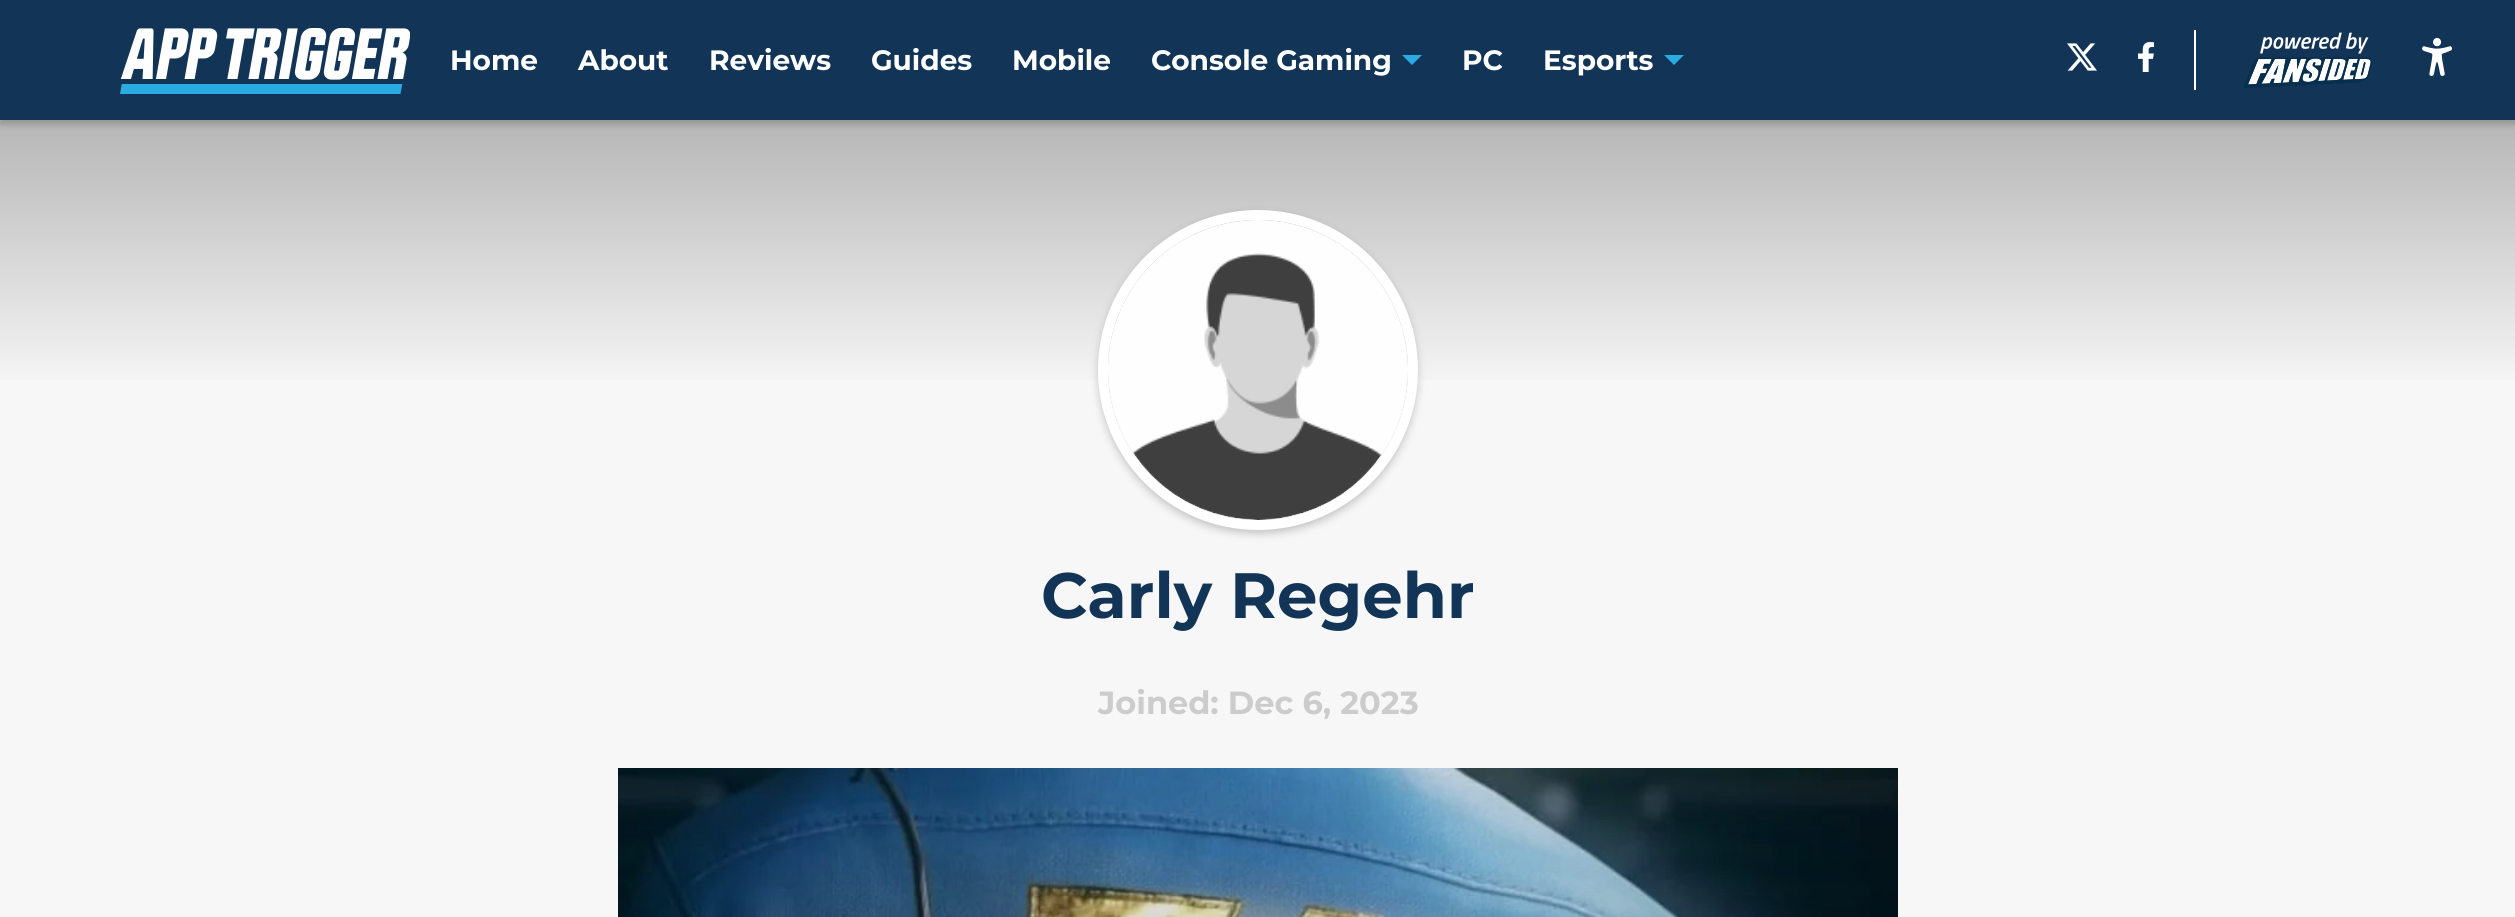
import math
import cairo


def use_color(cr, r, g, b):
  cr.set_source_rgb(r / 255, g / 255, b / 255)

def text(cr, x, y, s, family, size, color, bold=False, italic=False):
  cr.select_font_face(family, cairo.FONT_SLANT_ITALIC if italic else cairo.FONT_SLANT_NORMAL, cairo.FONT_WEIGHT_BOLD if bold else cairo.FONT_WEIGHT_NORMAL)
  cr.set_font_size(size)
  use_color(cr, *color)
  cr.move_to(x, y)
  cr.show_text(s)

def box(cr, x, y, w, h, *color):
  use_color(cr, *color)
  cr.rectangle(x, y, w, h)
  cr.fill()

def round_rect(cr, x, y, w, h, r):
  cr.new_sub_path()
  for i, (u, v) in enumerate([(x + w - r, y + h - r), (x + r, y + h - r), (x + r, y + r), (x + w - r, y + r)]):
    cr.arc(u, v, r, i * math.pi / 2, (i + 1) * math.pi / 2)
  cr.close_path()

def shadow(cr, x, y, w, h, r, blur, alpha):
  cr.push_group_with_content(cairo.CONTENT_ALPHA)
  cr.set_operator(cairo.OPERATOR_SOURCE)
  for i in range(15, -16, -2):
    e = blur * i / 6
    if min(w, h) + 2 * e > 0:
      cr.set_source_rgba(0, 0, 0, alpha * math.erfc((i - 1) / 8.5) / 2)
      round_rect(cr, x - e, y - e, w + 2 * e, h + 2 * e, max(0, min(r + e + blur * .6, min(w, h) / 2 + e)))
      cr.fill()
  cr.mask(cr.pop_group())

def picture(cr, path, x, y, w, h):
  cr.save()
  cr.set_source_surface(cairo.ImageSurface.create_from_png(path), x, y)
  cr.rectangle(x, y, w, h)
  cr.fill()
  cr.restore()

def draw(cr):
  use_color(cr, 247, 247, 247)
  cr.paint()
  gradient = cairo.LinearGradient(1258, 380, 1258, 0)
  gradient.add_color_stop_rgba(0, 0.957, 0.957, 0.957, 1)
  gradient.add_color_stop_rgba(1, 0.6, 0.6, 0.6, 1)
  cr.set_source(gradient)
  cr.rectangle(0, 120, 2515, 260)
  cr.fill()
  use_color(cr, 0, 0, 0)
  shadow(cr, 0, 4, 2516, 120, 0, 4, 0.2)
  box(cr, 0, 0, 2515, 120, 17, 52, 87)
  picture(cr, "img_01.png", 120, 28, 290, 66)
  use_color(cr, 42, 171, 226)
  cr.set_fill_rule(cairo.FILL_RULE_EVEN_ODD)
  cr.new_path()
  cr.move_to(1402, 55)
  cr.line_to(1412, 65)
  cr.line_to(1422, 55)
  cr.close_path()
  cr.fill()
  cr.new_path()
  cr.move_to(1664, 55)
  cr.line_to(1674, 65)
  cr.line_to(1684, 55)
  cr.close_path()
  cr.fill()
  picture(cr, "img_02.png", 2067, 43, 30, 28)
  picture(cr, "img_03.png", 2138, 42, 16, 30)
  box(cr, 2194, 30, 2, 60, 255, 255, 255)
  picture(cr, "img_04.png", 2243, 32, 129, 56)
  picture(cr, "img_05.png", 2422, 37, 30, 39)
  use_color(cr, 0, 0, 0)
  shadow(cr, 1098, 214, 320, 320, 160, 4, 0.2)
  cr.arc(1258, 370, 155, 0, 2 * math.pi)
  use_color(cr, 255, 255, 255)
  cr.set_line_width(10)
  cr.stroke()
  use_color(cr, 247, 247, 247)
  cr.arc(1258, 370, 150, 0, 2 * math.pi)
  cr.fill()
  picture(cr, "img_06.png", 1108, 220, 300, 300)
  picture(cr, "img_07.png", 618, 768, 1280, 149)
  text(cr, 450, 70, "Home", "Montserrat", 28, (255, 255, 255), bold=True)
  text(cr, 578, 70, "About", "Montserrat", 28, (255, 255, 255), bold=True)
  text(cr, 709, 70, "Reviews", "Montserrat", 28, (255, 255, 255), bold=True)
  text(cr, 871, 70, "Guides", "Montserrat", 28, (255, 255, 255), bold=True)
  text(cr, 1012, 70, "Mobile", "Montserrat", 28, (255, 255, 255), bold=True)
  text(cr, 1151, 70, "Console Gaming", "Montserrat", 28, (255, 255, 255), bold=True)
  text(cr, 1462, 70, "PC", "Montserrat", 28, (255, 255, 255), bold=True)
  text(cr, 1543, 70, "Esports", "Montserrat", 28, (255, 255, 255), bold=True)
  text(cr, 1041, 618, "Carly Regehr", "Montserrat", 64, (17, 52, 87), bold=True)
  text(cr, 1098, 714, "Joined: Dec 6, 2023", "Montserrat", 32, (204, 204, 204), bold=True)


surface = cairo.ImageSurface(cairo.FORMAT_RGB24, 2515, 917)
cr = cairo.Context(surface)
options = cairo.FontOptions()
options.set_hint_metrics(cairo.HINT_METRICS_OFF)
options.set_hint_style(cairo.HINT_STYLE_NONE)
cr.set_font_options(options)
cr.set_miter_limit(4)
draw(cr)
surface.write_to_png("out.png")
